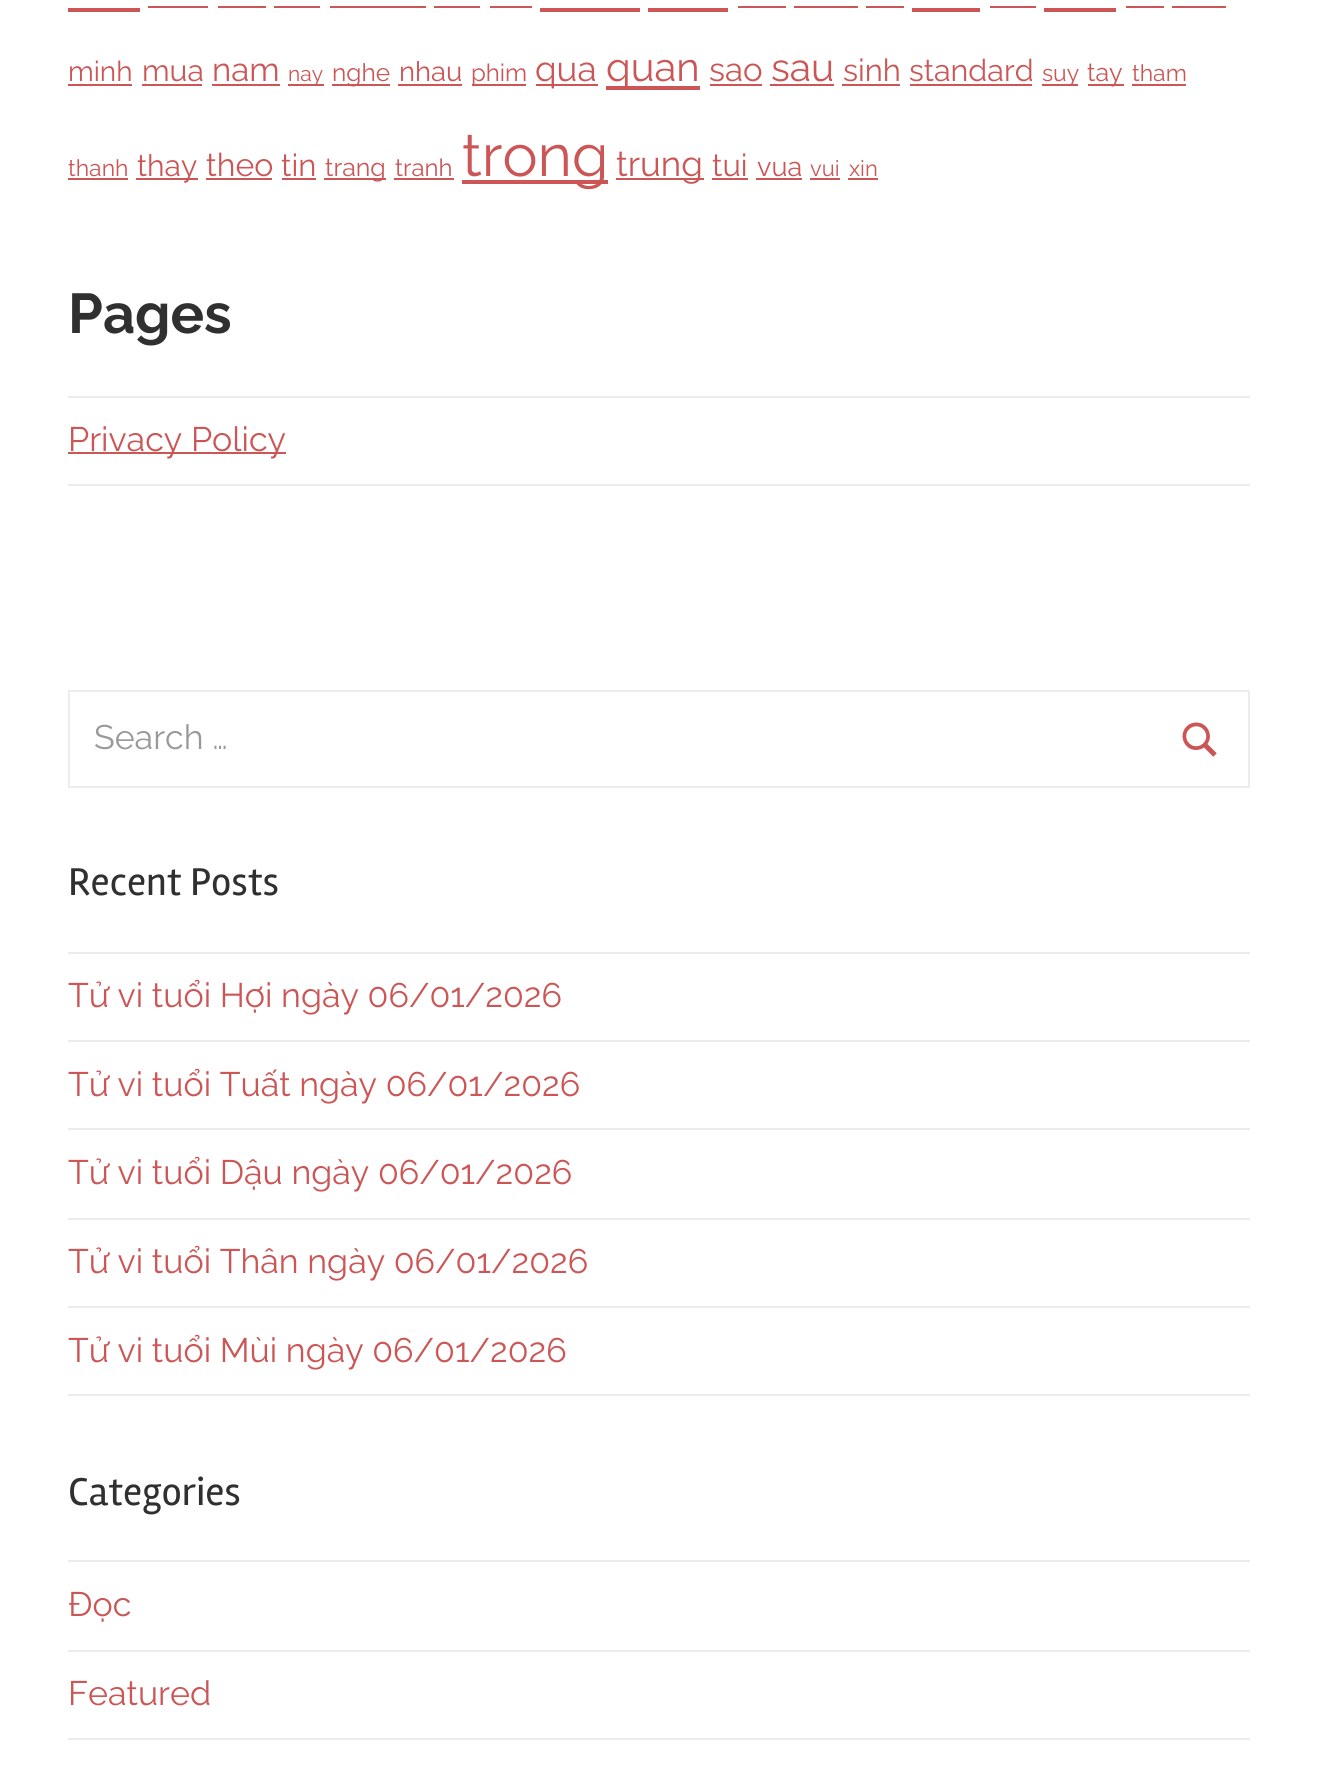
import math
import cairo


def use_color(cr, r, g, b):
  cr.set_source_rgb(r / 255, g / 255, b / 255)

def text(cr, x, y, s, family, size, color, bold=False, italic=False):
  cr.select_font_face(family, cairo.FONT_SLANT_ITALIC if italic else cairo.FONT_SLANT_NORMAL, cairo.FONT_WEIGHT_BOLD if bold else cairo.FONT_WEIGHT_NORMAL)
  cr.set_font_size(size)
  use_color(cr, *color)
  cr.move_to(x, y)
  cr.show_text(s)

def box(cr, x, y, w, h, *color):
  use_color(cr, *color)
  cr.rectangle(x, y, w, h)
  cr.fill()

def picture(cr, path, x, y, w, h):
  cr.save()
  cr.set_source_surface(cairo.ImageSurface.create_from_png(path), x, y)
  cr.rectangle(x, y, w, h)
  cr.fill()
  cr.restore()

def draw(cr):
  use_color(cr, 255, 255, 255)
  cr.paint()
  box(cr, 148, 6, 60, 2, 204, 85, 85)
  box(cr, 218, 6, 48, 2, 204, 85, 85)
  box(cr, 274, 6, 46, 2, 204, 85, 85)
  box(cr, 330, 6, 96, 2, 204, 85, 85)
  box(cr, 434, 6, 46, 2, 204, 85, 85)
  box(cr, 490, 6, 42, 2, 204, 85, 85)
  box(cr, 738, 6, 48, 2, 204, 85, 85)
  box(cr, 794, 6, 64, 2, 204, 85, 85)
  box(cr, 866, 6, 38, 2, 204, 85, 85)
  box(cr, 990, 6, 46, 2, 204, 85, 85)
  box(cr, 1126, 6, 38, 2, 204, 85, 85)
  box(cr, 1172, 6, 54, 2, 204, 85, 85)
  box(cr, 68, 8, 72, 4, 204, 85, 85)
  box(cr, 540, 8, 100, 4, 204, 85, 85)
  box(cr, 648, 8, 80, 4, 204, 85, 85)
  box(cr, 912, 8, 68, 4, 204, 85, 85)
  box(cr, 1044, 8, 72, 4, 204, 85, 85)
  box(cr, 68, 84, 64, 2, 204, 85, 85)
  box(cr, 142, 84, 60, 2, 204, 85, 85)
  box(cr, 212, 84, 68, 2, 204, 85, 85)
  box(cr, 288, 84, 36, 2, 204, 85, 85)
  box(cr, 332, 84, 58, 2, 204, 85, 85)
  box(cr, 398, 84, 64, 2, 204, 85, 85)
  box(cr, 472, 84, 54, 2, 204, 85, 85)
  box(cr, 536, 84, 62, 2, 204, 85, 85)
  box(cr, 606, 86, 94, 4, 204, 85, 85)
  box(cr, 710, 84, 52, 2, 204, 85, 85)
  box(cr, 770, 84, 64, 2, 204, 85, 85)
  box(cr, 842, 84, 58, 2, 204, 85, 85)
  box(cr, 910, 84, 122, 2, 204, 85, 85)
  box(cr, 1042, 84, 36, 2, 204, 85, 85)
  box(cr, 1088, 84, 36, 2, 204, 85, 85)
  box(cr, 1132, 84, 54, 2, 204, 85, 85)
  box(cr, 68, 178, 60, 2, 204, 85, 85)
  box(cr, 136, 178, 62, 2, 204, 85, 85)
  box(cr, 206, 178, 66, 2, 204, 85, 85)
  box(cr, 282, 178, 34, 2, 204, 85, 85)
  box(cr, 324, 178, 62, 2, 204, 85, 85)
  box(cr, 394, 178, 60, 2, 204, 85, 85)
  box(cr, 462, 180, 146, 4, 204, 85, 85)
  box(cr, 616, 178, 88, 2, 204, 85, 85)
  box(cr, 712, 178, 36, 2, 204, 85, 85)
  box(cr, 756, 178, 46, 2, 204, 85, 85)
  box(cr, 810, 178, 30, 2, 204, 85, 85)
  box(cr, 848, 178, 30, 2, 204, 85, 85)
  box(cr, 68, 396, 1182, 2, 236, 236, 236)
  box(cr, 68, 484, 1182, 2, 236, 236, 236)
  box(cr, 68, 452, 218, 2, 204, 85, 85)
  cr.rectangle(69, 691, 1180, 96)
  use_color(cr, 236, 236, 236)
  cr.stroke()
  picture(cr, "img_01.png", 1182, 722, 35, 35)
  box(cr, 68, 952, 1182, 2, 236, 236, 236)
  box(cr, 68, 1040, 1182, 2, 236, 236, 236)
  box(cr, 68, 1128, 1182, 2, 236, 236, 236)
  box(cr, 68, 1218, 1182, 2, 236, 236, 236)
  box(cr, 68, 1306, 1182, 2, 236, 236, 236)
  box(cr, 68, 1394, 1182, 2, 236, 236, 236)
  box(cr, 68, 1560, 1182, 2, 236, 236, 236)
  box(cr, 68, 1650, 1182, 2, 236, 236, 236)
  box(cr, 68, 1738, 1182, 2, 236, 236, 236)
  text(cr, 68, 81, "minh", "Raleway", 28, (204, 85, 85))
  text(cr, 142, 81, "mua", "Raleway", 30, (204, 85, 85))
  text(cr, 212, 81, "nam", "Raleway", 33, (204, 85, 85))
  text(cr, 288, 81, "nay", "Raleway", 21, (204, 85, 85))
  text(cr, 332, 81, "nghe", "Raleway", 24.5, (204, 85, 85))
  text(cr, 399, 81, "nhau", "Raleway", 27.5, (204, 85, 85))
  text(cr, 471, 81, "phim", "Raleway", 24, (204, 85, 85))
  text(cr, 535, 81, "qua", "Raleway", 35, (204, 85, 85))
  text(cr, 606, 81, "quan", "Raleway", 40, (204, 85, 85))
  text(cr, 709, 81, "sao", "Raleway", 33, (204, 85, 85))
  text(cr, 771, 81, "sau", "Raleway", 39, (204, 85, 85))
  text(cr, 843, 81, "sinh", "Raleway", 31, (204, 85, 85))
  text(cr, 909, 81, "standard", "Raleway", 30.5, (204, 85, 85))
  text(cr, 1042, 81, "suy", "Raleway", 23, (204, 85, 85))
  text(cr, 1087, 81, "tay", "Raleway", 25, (204, 85, 85))
  text(cr, 1132, 81, "tham", "Raleway", 23, (204, 85, 85))
  text(cr, 68, 176, "thanh", "Raleway", 23, (204, 85, 85))
  text(cr, 137, 176, "thay", "Raleway", 30, (204, 85, 85))
  text(cr, 206, 176, "theo", "Raleway", 32, (204, 85, 85))
  text(cr, 281, 176, "tin", "Raleway", 31, (204, 85, 85))
  text(cr, 325, 176, "trang", "Raleway", 25, (204, 85, 85))
  text(cr, 395, 176, "tranh", "Raleway", 24, (204, 85, 85))
  text(cr, 462, 176, "trong", "Raleway", 59, (204, 85, 85))
  text(cr, 616, 176, "trung", "Raleway", 35, (204, 85, 85))
  text(cr, 712, 176, "tui", "Raleway", 31, (204, 85, 85))
  text(cr, 757, 176, "vua", "Raleway", 27, (204, 85, 85))
  text(cr, 810, 176, "vui", "Raleway", 22, (204, 85, 85))
  text(cr, 849, 176, "xin", "Raleway", 22, (204, 85, 85))
  text(cr, 68, 333, "Pages", "Raleway", 56, (48, 48, 48), bold=True)
  text(cr, 68, 451, "Privacy Policy", "Raleway", 34, (204, 85, 85))
  text(cr, 94, 749, "Search …", "Raleway", 34, (153, 153, 153))
  text(cr, 68, 895, "Recent Posts", "Rambla", 40, (48, 48, 48))
  text(cr, 68, 1007, "Tử vi tuổi Hợi ngày 06/01/2026", "Raleway", 34, (204, 85, 85))
  text(cr, 68, 1096, "Tử vi tuổi Tuất ngày 06/01/2026", "Raleway", 34, (204, 85, 85))
  text(cr, 68, 1184, "Tử vi tuổi Dậu ngày 06/01/2026", "Raleway", 34, (204, 85, 85))
  text(cr, 68, 1273, "Tử vi tuổi Thân ngày 06/01/2026", "Raleway", 34, (204, 85, 85))
  text(cr, 68, 1362, "Tử vi tuổi Mùi ngày 06/01/2026", "Raleway", 34, (204, 85, 85))
  text(cr, 68, 1505, "Categories", "Rambla", 40, (48, 48, 48))
  text(cr, 68, 1616, "Đọc", "Raleway", 34, (204, 85, 85))
  text(cr, 68, 1705, "Featured", "Raleway", 34, (204, 85, 85))


surface = cairo.ImageSurface(cairo.FORMAT_RGB24, 1317, 1780)
cr = cairo.Context(surface)
options = cairo.FontOptions()
options.set_hint_metrics(cairo.HINT_METRICS_OFF)
options.set_hint_style(cairo.HINT_STYLE_NONE)
cr.set_font_options(options)
cr.set_miter_limit(4)
draw(cr)
surface.write_to_png("out.png")
